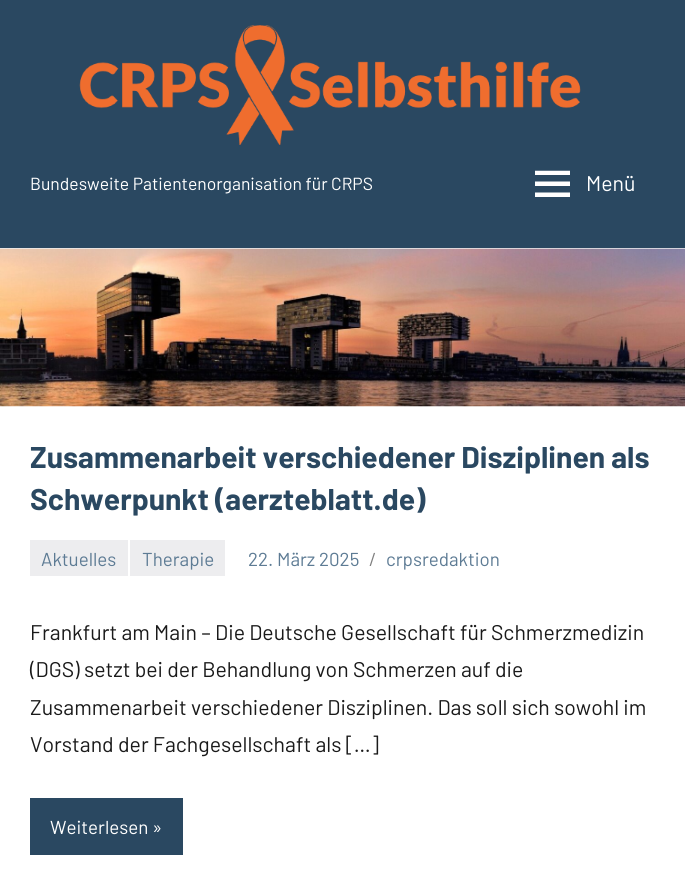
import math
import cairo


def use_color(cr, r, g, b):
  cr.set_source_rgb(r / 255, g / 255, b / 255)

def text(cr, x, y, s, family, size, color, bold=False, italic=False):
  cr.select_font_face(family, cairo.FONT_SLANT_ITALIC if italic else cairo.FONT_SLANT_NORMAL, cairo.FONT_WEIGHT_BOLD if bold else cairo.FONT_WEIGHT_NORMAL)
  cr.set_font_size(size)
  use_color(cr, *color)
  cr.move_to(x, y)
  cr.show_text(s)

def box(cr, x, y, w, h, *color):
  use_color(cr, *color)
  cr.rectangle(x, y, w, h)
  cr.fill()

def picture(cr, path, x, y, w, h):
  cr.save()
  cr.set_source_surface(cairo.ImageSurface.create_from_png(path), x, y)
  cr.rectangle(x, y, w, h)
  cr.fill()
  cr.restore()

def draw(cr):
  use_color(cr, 237, 237, 239)
  cr.paint()
  box(cr, 0, 0, 685, 248, 42, 72, 97)
  picture(cr, "img_01.png", 79, 25, 502, 120)
  picture(cr, "img_02.png", 535, 170, 35, 27)
  box(cr, 0, 406, 685, 473, 255, 255, 255)
  picture(cr, "img_03.png", 0, 248, 685, 159)
  box(cr, 30, 540, 98, 36, 237, 237, 239)
  box(cr, 130, 540, 95, 36, 237, 237, 239)
  box(cr, 30, 798, 153, 57, 42, 72, 97)
  text(cr, 30, 190, "Bundesweite Patientenorganisation für CRPS", "Barlow", 17.5, (255, 255, 255))
  text(cr, 586, 191, "Menü", "Barlow", 21.25, (255, 255, 255))
  text(cr, 30, 468, "Zusammenarbeit verschiedener Disziplinen als", "Barlow", 30, (42, 72, 97), bold=True)
  text(cr, 30, 510, "Schwerpunkt (aerzteblatt.de)", "Barlow", 30, (42, 72, 97), bold=True)
  text(cr, 41, 566, "Aktuelles", "Barlow", 18.75, (93, 123, 148))
  text(cr, 142, 566, "Therapie", "Barlow", 18.75, (93, 123, 148))
  text(cr, 248, 566, "22. März 2025", "Barlow", 18.75, (93, 123, 148))
  text(cr, 369, 566, "/", "Barlow", 18.75, (128, 128, 128))
  text(cr, 386, 566, "crpsredaktion", "Barlow", 18.75, (93, 123, 148))
  text(cr, 30, 640, "Frankfurt am Main – Die Deutsche Gesellschaft für Schmerzmedizin", "Barlow", 21.25, (26, 26, 26))
  text(cr, 30, 677, "(DGS) setzt bei der Behandlung von Schmerzen auf die", "Barlow", 21.25, (26, 26, 26))
  text(cr, 30, 715, "Zusammenarbeit verschiedener Disziplinen. Das soll sich sowohl im", "Barlow", 21.25, (26, 26, 26))
  text(cr, 30, 752, "Vorstand der Fachgesellschaft als […]", "Barlow", 21.25, (26, 26, 26))
  text(cr, 50, 834, "Weiterlesen »", "Barlow", 18.75, (255, 255, 255))


surface = cairo.ImageSurface(cairo.FORMAT_RGB24, 685, 879)
cr = cairo.Context(surface)
options = cairo.FontOptions()
options.set_hint_metrics(cairo.HINT_METRICS_OFF)
options.set_hint_style(cairo.HINT_STYLE_NONE)
cr.set_font_options(options)
cr.set_miter_limit(4)
draw(cr)
surface.write_to_png("out.png")
